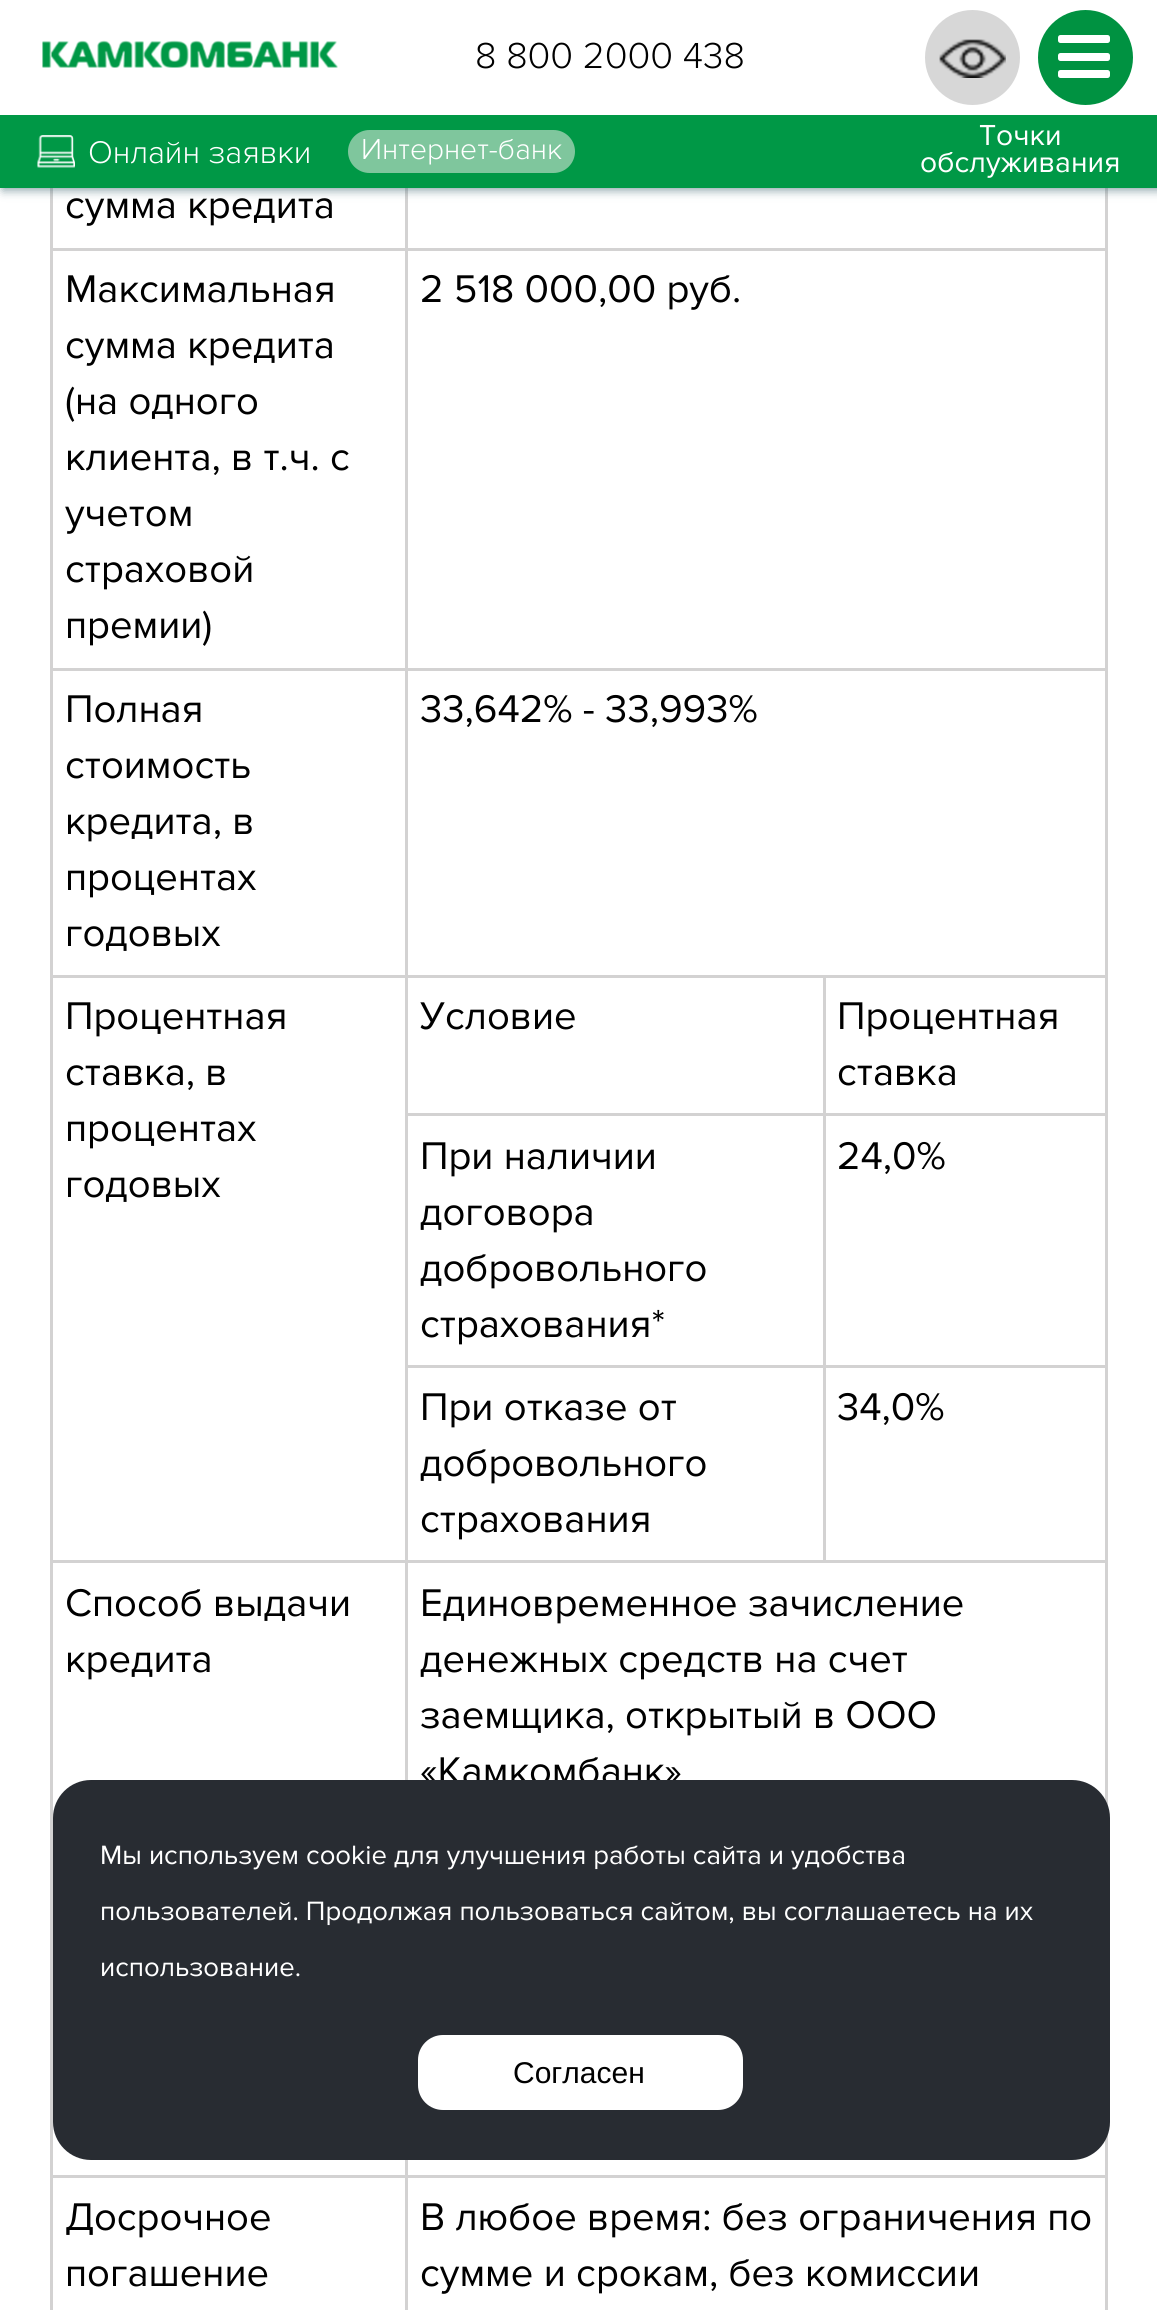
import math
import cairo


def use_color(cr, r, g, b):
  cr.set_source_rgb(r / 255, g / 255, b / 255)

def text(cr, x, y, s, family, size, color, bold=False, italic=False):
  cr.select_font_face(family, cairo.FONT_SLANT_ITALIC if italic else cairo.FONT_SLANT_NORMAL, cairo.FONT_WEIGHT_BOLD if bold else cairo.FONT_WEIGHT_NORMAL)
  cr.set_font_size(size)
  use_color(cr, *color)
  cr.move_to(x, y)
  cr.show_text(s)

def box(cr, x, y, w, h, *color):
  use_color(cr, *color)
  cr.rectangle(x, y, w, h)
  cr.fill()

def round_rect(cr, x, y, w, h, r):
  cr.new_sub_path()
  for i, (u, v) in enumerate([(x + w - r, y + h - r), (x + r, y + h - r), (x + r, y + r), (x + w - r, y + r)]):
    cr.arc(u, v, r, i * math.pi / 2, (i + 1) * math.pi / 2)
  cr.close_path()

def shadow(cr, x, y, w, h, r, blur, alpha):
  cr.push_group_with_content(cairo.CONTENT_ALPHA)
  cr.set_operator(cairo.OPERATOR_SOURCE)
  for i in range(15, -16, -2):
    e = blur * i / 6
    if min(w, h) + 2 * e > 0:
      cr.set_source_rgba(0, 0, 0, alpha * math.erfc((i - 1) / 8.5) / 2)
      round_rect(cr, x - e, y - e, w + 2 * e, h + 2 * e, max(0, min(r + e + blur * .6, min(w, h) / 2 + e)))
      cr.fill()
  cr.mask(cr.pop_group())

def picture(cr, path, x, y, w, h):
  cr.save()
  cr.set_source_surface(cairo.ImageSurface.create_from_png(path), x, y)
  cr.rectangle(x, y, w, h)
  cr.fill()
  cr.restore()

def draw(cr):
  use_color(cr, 255, 255, 255)
  cr.paint()
  box(cr, 405, 248, 703, 3, 211, 210, 210)
  box(cr, 405, 668, 703, 3, 211, 210, 210)
  box(cr, 823, 975, 285, 3, 211, 210, 210)
  box(cr, 823, 1113, 285, 3, 211, 210, 210)
  box(cr, 823, 1365, 285, 3, 211, 210, 210)
  box(cr, 405, 1560, 703, 3, 211, 210, 210)
  box(cr, 823, 1365, 3, 198, 211, 210, 210)
  box(cr, 405, 1365, 420, 3, 211, 210, 210)
  box(cr, 823, 1113, 3, 255, 211, 210, 210)
  box(cr, 405, 1113, 420, 3, 211, 210, 210)
  box(cr, 823, 975, 3, 140, 211, 210, 210)
  box(cr, 405, 975, 420, 3, 211, 210, 210)
  box(cr, 405, 1560, 3, 220, 211, 210, 210)
  box(cr, 50, 1560, 358, 3, 211, 210, 210)
  box(cr, 405, 1365, 3, 198, 211, 210, 210)
  box(cr, 405, 1113, 3, 255, 211, 210, 210)
  box(cr, 405, 975, 3, 140, 211, 210, 210)
  box(cr, 50, 975, 358, 3, 211, 210, 210)
  box(cr, 405, 668, 3, 310, 211, 210, 210)
  box(cr, 50, 668, 358, 3, 211, 210, 210)
  box(cr, 405, 248, 3, 422, 211, 210, 210)
  box(cr, 50, 248, 358, 3, 211, 210, 210)
  box(cr, 405, 188, 3, 62, 211, 210, 210)
  box(cr, 405, 2175, 703, 3, 211, 210, 210)
  box(cr, 405, 2175, 3, 135, 211, 210, 210)
  box(cr, 50, 2175, 358, 3, 211, 210, 210)
  box(cr, 50, 1813, 3, 497, 211, 210, 210)
  box(cr, 50, 1560, 3, 255, 211, 210, 210)
  box(cr, 50, 975, 3, 588, 211, 210, 210)
  box(cr, 50, 668, 3, 310, 211, 210, 210)
  box(cr, 50, 188, 3, 482, 211, 210, 210)
  box(cr, 1105, 1560, 3, 246, 211, 210, 210)
  box(cr, 1105, 1365, 3, 198, 211, 210, 210)
  box(cr, 1105, 1113, 3, 255, 211, 210, 210)
  box(cr, 1105, 975, 3, 140, 211, 210, 210)
  box(cr, 1105, 668, 3, 310, 211, 210, 210)
  box(cr, 1105, 188, 3, 482, 211, 210, 210)
  use_color(cr, 48, 92, 103)
  shadow(cr, 3, 3, 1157, 187, 0, 5, 0.6)
  box(cr, 0, 0, 1157, 115, 255, 255, 255)
  use_color(cr, 0, 146, 65)
  cr.arc(1085.5, 57.5, 47.5, 0, 2 * math.pi)
  cr.fill()
  use_color(cr, 255, 255, 255)
  round_rect(cr, 1058, 35, 52, 8, 2.5)
  cr.fill()
  round_rect(cr, 1058, 53, 52, 8, 2.5)
  cr.fill()
  round_rect(cr, 1058, 70, 52, 8, 2.5)
  cr.fill()
  picture(cr, "img_01.png", 42, 40, 296, 28)
  use_color(cr, 215, 215, 215)
  cr.arc(972.5, 57.5, 47.5, 0, 2 * math.pi)
  cr.fill()
  picture(cr, "img_02.png", 939, 39, 67, 39)
  box(cr, 0, 115, 1157, 73, 0, 152, 70)
  picture(cr, "img_03.png", 37, 135, 38, 33)
  use_color(cr, 127, 198, 157)
  round_rect(cr, 348, 130, 227, 43, 21.5)
  cr.fill()
  box(cr, 405, 2160, 3, 18, 211, 210, 210)
  box(cr, 1105, 2134, 3, 176, 211, 210, 210)
  text(cr, 475, 68, "8 800 2000 438", "Proxima Nova Light", 37.5, (0, 0, 0))
  text(cr, 88, 163, "Онлайн заявки", "Proxima Nova Light", 32.5, (255, 255, 255))
  text(cr, 361, 159, "Интернет-банк", "Proxima Nova Light", 30, (255, 255, 255))
  text(cr, 979, 145, "Точки", "Proxima Nova", 30, (255, 255, 255))
  text(cr, 920, 172, "обслуживания", "Proxima Nova", 30, (255, 255, 255))
  text(cr, 65, 218, "сумма кредита", "Proxima Nova", 40, (0, 0, 0))
  text(cr, 65, 302, "Максимальная", "Proxima Nova", 40, (0, 0, 0))
  text(cr, 65, 358, "сумма кредита", "Proxima Nova", 40, (0, 0, 0))
  text(cr, 65, 414, "(на одного", "Proxima Nova", 40, (0, 0, 0))
  text(cr, 65, 470, "клиента, в т.ч. с", "Proxima Nova", 40, (0, 0, 0))
  text(cr, 65, 526, "учетом", "Proxima Nova", 40, (0, 0, 0))
  text(cr, 65, 582, "страховой", "Proxima Nova", 40, (0, 0, 0))
  text(cr, 65, 638, "премии)", "Proxima Nova", 40, (0, 0, 0))
  text(cr, 420, 302, "2 518 000,00 руб.", "Proxima Nova", 40, (0, 0, 0))
  text(cr, 65, 722, "Полная", "Proxima Nova", 40, (0, 0, 0))
  text(cr, 65, 778, "стоимость", "Proxima Nova", 40, (0, 0, 0))
  text(cr, 65, 834, "кредита, в", "Proxima Nova", 40, (0, 0, 0))
  text(cr, 65, 890, "процентах", "Proxima Nova", 40, (0, 0, 0))
  text(cr, 65, 946, "годовых", "Proxima Nova", 40, (0, 0, 0))
  text(cr, 420, 722, "33,642% - 33,993%", "Proxima Nova", 40, (0, 0, 0))
  text(cr, 65, 1029, "Процентная", "Proxima Nova", 40, (0, 0, 0))
  text(cr, 65, 1085, "ставка, в", "Proxima Nova", 40, (0, 0, 0))
  text(cr, 65, 1141, "процентах", "Proxima Nova", 40, (0, 0, 0))
  text(cr, 65, 1197, "годовых", "Proxima Nova", 40, (0, 0, 0))
  text(cr, 420, 1029, "Условие", "Proxima Nova", 40, (0, 0, 0))
  text(cr, 837, 1029, "Процентная", "Proxima Nova", 40, (0, 0, 0))
  text(cr, 837, 1085, "ставка", "Proxima Nova", 40, (0, 0, 0))
  text(cr, 420, 1169, "При наличии", "Proxima Nova", 40, (0, 0, 0))
  text(cr, 420, 1225, "договора", "Proxima Nova", 40, (0, 0, 0))
  text(cr, 420, 1281, "добровольного", "Proxima Nova", 40, (0, 0, 0))
  text(cr, 420, 1337, "страхования*", "Proxima Nova", 40, (0, 0, 0))
  text(cr, 837, 1169, "24,0%", "Proxima Nova", 40, (0, 0, 0))
  text(cr, 420, 1420, "При отказе от", "Proxima Nova", 40, (0, 0, 0))
  text(cr, 420, 1476, "добровольного", "Proxima Nova", 40, (0, 0, 0))
  text(cr, 420, 1532, "страхования", "Proxima Nova", 40, (0, 0, 0))
  text(cr, 837, 1420, "34,0%", "Proxima Nova", 40, (0, 0, 0))
  text(cr, 65, 1616, "Способ выдачи", "Proxima Nova", 40, (0, 0, 0))
  text(cr, 65, 1672, "кредита", "Proxima Nova", 40, (0, 0, 0))
  text(cr, 420, 1616, "Единовременное зачисление", "Proxima Nova", 40, (0, 0, 0))
  text(cr, 420, 1672, "денежных средств на счет", "Proxima Nova", 40, (0, 0, 0))
  text(cr, 420, 1728, "заемщика, открытый в ООО", "Proxima Nova", 40, (0, 0, 0))
  text(cr, 420, 1784, "«Камкомбанк»", "Proxima Nova", 40, (0, 0, 0))
  text(cr, 65, 2230, "Досрочное", "Proxima Nova", 40, (0, 0, 0))
  text(cr, 65, 2286, "погашение", "Proxima Nova", 40, (0, 0, 0))
  text(cr, 420, 2230, "В любое время: без ограничения по", "Proxima Nova", 40, (0, 0, 0))
  text(cr, 420, 2286, "сумме и срокам, без комиссии", "Proxima Nova", 40, (0, 0, 0))
  use_color(cr, 40, 44, 50)
  round_rect(cr, 53, 1780, 1057, 380, 38)
  cr.fill()
  text(cr, 100, 1864, "Мы используем cookie для улучшения работы сайта и удобства", "Proxima Nova", 27.5, (255, 255, 255))
  text(cr, 100, 1920, "пользователей. Продолжая пользоваться сайтом, вы соглашаетесь на их", "Proxima Nova", 27.5, (255, 255, 255))
  text(cr, 100, 1976, "использование.", "Proxima Nova", 27.5, (255, 255, 255))
  round_rect(cr, 418, 2035, 325, 75, 25)
  cr.fill()
  text(cr, 513, 2083, "Согласен", "Liberation Sans", 30, (0, 0, 0))


surface = cairo.ImageSurface(cairo.FORMAT_RGB24, 1157, 2310)
cr = cairo.Context(surface)
options = cairo.FontOptions()
options.set_hint_metrics(cairo.HINT_METRICS_OFF)
options.set_hint_style(cairo.HINT_STYLE_NONE)
cr.set_font_options(options)
cr.set_miter_limit(4)
draw(cr)
surface.write_to_png("out.png")
